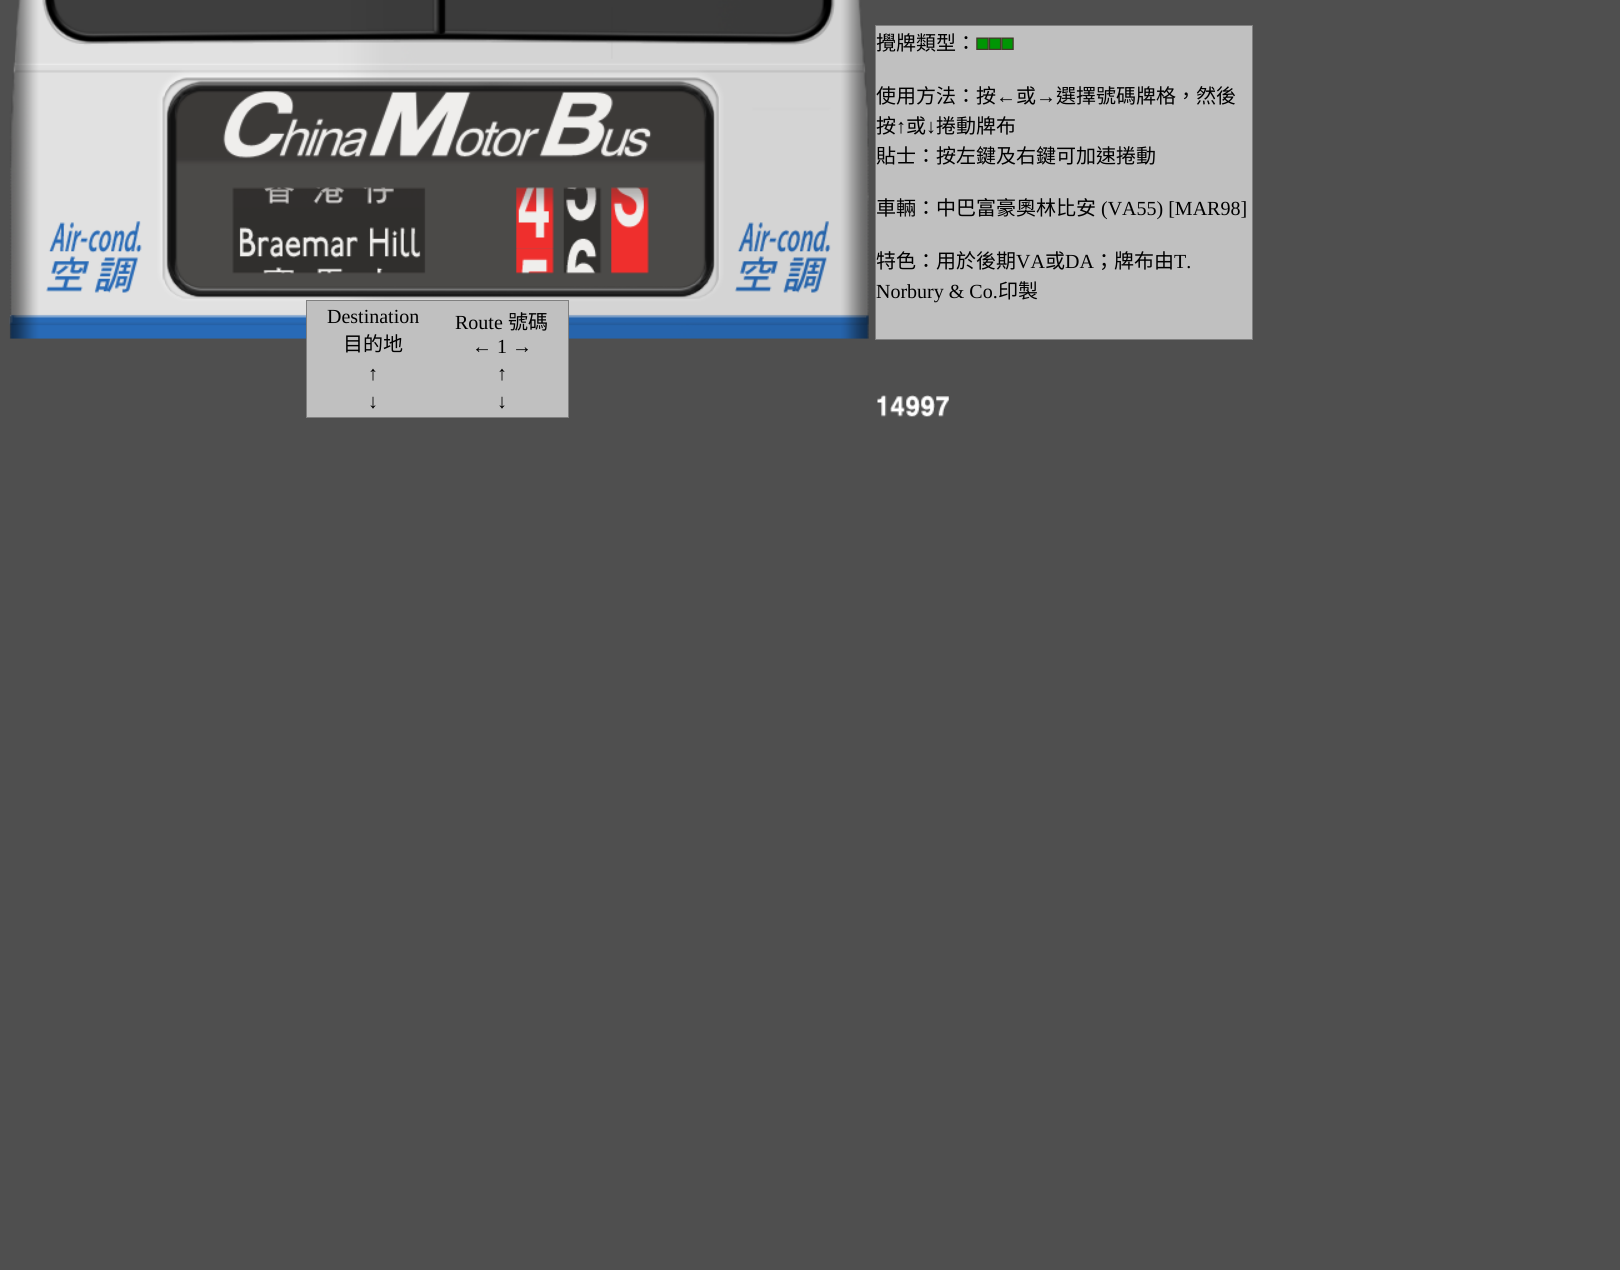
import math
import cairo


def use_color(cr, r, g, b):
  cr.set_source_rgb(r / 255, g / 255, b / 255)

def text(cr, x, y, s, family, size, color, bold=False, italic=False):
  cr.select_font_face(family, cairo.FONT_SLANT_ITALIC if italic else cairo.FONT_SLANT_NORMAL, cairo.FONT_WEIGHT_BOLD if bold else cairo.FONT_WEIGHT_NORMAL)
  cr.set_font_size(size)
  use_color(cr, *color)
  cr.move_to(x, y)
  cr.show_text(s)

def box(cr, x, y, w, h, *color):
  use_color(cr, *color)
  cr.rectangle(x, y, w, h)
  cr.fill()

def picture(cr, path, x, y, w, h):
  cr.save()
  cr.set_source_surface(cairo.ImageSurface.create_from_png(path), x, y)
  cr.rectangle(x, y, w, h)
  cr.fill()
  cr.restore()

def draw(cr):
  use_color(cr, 79, 79, 79)
  cr.paint()
  picture(cr, "img_01.png", 9, 0, 860, 339)
  use_color(cr, 192, 192, 192)
  cr.rectangle(875.5, 25.5, 377, 314)
  cr.fill_preserve()
  use_color(cr, 128, 128, 128)
  cr.set_line_width(1)
  cr.stroke()
  picture(cr, "img_02.png", 976, 37, 13, 13)
  picture(cr, "img_03.png", 988, 37, 14, 13)
  picture(cr, "img_04.png", 1001, 37, 13, 13)
  box(cr, 232, 204, 194, 70, 0, 0, 0)
  picture(cr, "img_06.png", 232, 187, 194, 17)
  picture(cr, "img_07.png", 239, 227, 182, 47)
  picture(cr, "img_08.png", 516, 187, 38, 62)
  picture(cr, "img_09.png", 516, 248, 38, 26)
  box(cr, 563, 187, 39, 51, 0, 0, 0)
  picture(cr, "img_10.png", 566, 187, 31, 35)
  picture(cr, "img_11.png", 563, 238, 39, 36)
  picture(cr, "img_12.png", 611, 187, 38, 49)
  box(cr, 611, 236, 38, 38, 255, 0, 0)
  picture(cr, "img_05.png", 166, 81, 549, 217)
  use_color(cr, 192, 192, 192)
  cr.rectangle(306.5, 300.5, 262, 117)
  cr.fill_preserve()
  use_color(cr, 128, 128, 128)
  cr.stroke()
  picture(cr, "img_13.png", 877, 395, 10, 22)
  picture(cr, "img_14.png", 890, 396, 15, 21)
  picture(cr, "img_15.png", 906, 395, 14, 22)
  picture(cr, "img_15.png", 921, 395, 14, 22)
  picture(cr, "img_16.png", 936, 396, 13, 21)
  text(cr, 876, 50, "攪牌類型：", "Noto Sans CJK TC", 20, (0, 0, 0))
  text(cr, 876, 103, "使用方法：按", "Noto Sans CJK TC", 20, (0, 0, 0))
  text(cr, 996, 103, "←", "Liberation Serif", 20, (0, 0, 0))
  text(cr, 1016, 103, "或", "Noto Sans CJK TC", 20, (0, 0, 0))
  text(cr, 1036, 103, "→", "Liberation Serif", 20, (0, 0, 0))
  text(cr, 1056, 103, "選擇號碼牌格，然後", "Noto Sans CJK TC", 20, (0, 0, 0))
  text(cr, 876, 133, "按", "Noto Sans CJK TC", 20, (0, 0, 0))
  text(cr, 896, 133, "↑", "Liberation Serif", 20, (0, 0, 0))
  text(cr, 906, 133, "或", "Noto Sans CJK TC", 20, (0, 0, 0))
  text(cr, 926, 133, "↓", "Liberation Serif", 20, (0, 0, 0))
  text(cr, 936, 133, "捲動牌布", "Noto Sans CJK TC", 20, (0, 0, 0))
  text(cr, 876, 163, "貼士：按左鍵及右鍵可加速捲動", "Noto Sans CJK TC", 20, (0, 0, 0))
  text(cr, 876, 215, "車輛：中巴富豪奧林比安", "Noto Sans CJK TC", 20, (0, 0, 0))
  text(cr, 1101, 215, "(VA55) [MAR98]", "Liberation Serif", 20, (0, 0, 0))
  text(cr, 876, 268, "特色：用於後期", "Noto Sans CJK TC", 20, (0, 0, 0))
  text(cr, 1016, 268, "VA", "Liberation Serif", 20, (0, 0, 0))
  text(cr, 1045, 268, "或", "Noto Sans CJK TC", 20, (0, 0, 0))
  text(cr, 1065, 268, "DA", "Liberation Serif", 20, (0, 0, 0))
  text(cr, 1094, 268, "；牌布由", "Noto Sans CJK TC", 20, (0, 0, 0))
  text(cr, 1174, 268, "T.", "Liberation Serif", 20, (0, 0, 0))
  text(cr, 876, 298, "Norbury & Co.", "Liberation Serif", 20, (0, 0, 0))
  text(cr, 998, 298, "印製", "Noto Sans CJK TC", 20, (0, 0, 0))
  text(cr, 327, 323, "Destination", "Liberation Serif", 20, (0, 0, 0))
  text(cr, 343, 351, "目的地", "Noto Sans CJK TC", 20, (0, 0, 0))
  text(cr, 455, 329, "Route", "Liberation Serif", 20, (0, 0, 0))
  text(cr, 508, 329, "號碼", "Noto Sans CJK TC", 20, (0, 0, 0))
  text(cr, 472, 353, "← 1 →", "Liberation Serif", 20, (0, 0, 0))
  text(cr, 368, 380, "↑", "Liberation Serif", 20, (0, 0, 0))
  text(cr, 497, 380, "↑", "Liberation Serif", 20, (0, 0, 0))
  text(cr, 368, 408, "↓", "Liberation Serif", 20, (0, 0, 0))
  text(cr, 497, 408, "↓", "Liberation Serif", 20, (0, 0, 0))


surface = cairo.ImageSurface(cairo.FORMAT_RGB24, 1620, 1270)
cr = cairo.Context(surface)
options = cairo.FontOptions()
options.set_hint_metrics(cairo.HINT_METRICS_OFF)
options.set_hint_style(cairo.HINT_STYLE_NONE)
cr.set_font_options(options)
cr.set_miter_limit(4)
draw(cr)
surface.write_to_png("out.png")
